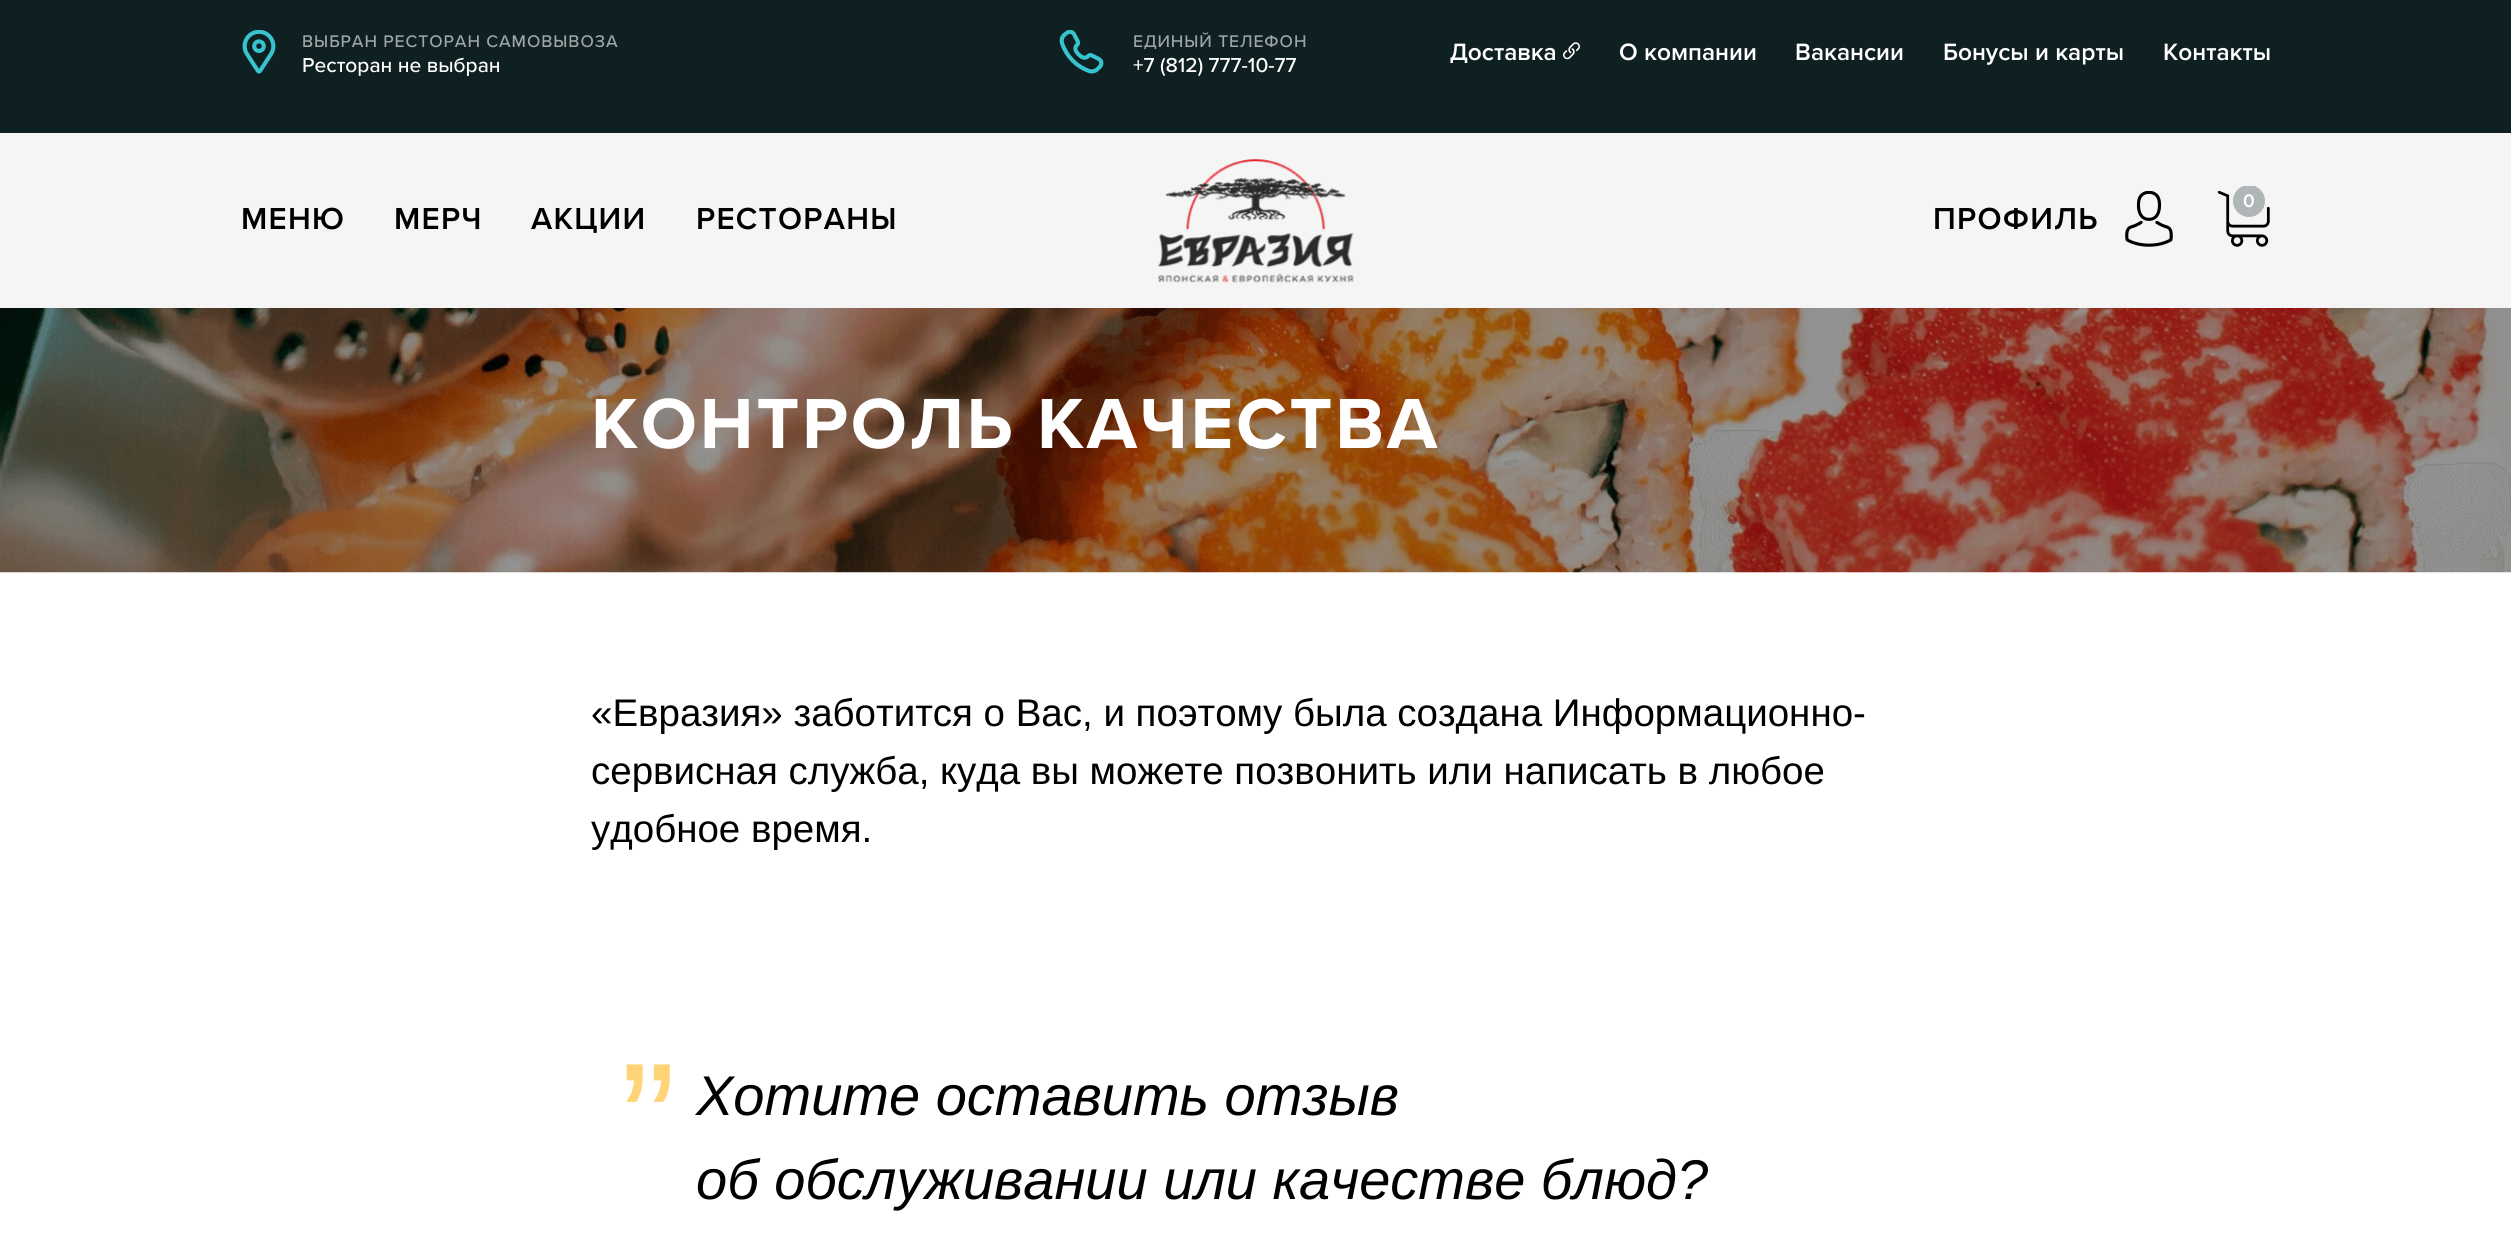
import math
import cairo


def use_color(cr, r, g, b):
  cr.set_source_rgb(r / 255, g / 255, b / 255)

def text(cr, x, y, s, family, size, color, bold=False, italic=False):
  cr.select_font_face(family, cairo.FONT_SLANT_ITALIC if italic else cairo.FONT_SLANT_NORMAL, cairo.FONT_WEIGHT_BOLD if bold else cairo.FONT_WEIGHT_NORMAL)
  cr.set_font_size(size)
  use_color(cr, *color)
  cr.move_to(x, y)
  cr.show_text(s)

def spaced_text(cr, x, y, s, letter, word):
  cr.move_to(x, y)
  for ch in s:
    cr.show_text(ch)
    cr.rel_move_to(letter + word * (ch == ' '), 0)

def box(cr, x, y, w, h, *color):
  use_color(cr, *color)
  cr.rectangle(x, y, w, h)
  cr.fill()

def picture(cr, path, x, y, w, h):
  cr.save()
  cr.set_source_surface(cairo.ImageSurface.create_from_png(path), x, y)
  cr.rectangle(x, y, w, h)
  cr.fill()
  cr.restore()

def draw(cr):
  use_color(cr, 255, 255, 255)
  cr.paint()
  box(cr, 0, 133, 2511, 175, 245, 245, 245)
  box(cr, 0, 0, 2511, 133, 15, 32, 34)
  picture(cr, "img_01.png", 242, 30, 34, 44)
  picture(cr, "img_02.png", 1059, 30, 45, 44)
  picture(cr, "img_03.png", 1563, 42, 17, 18)
  picture(cr, "img_04.png", 1158, 159, 196, 124)
  picture(cr, "img_05.png", 2217, 191, 53, 56)
  cr.save()
  cr.rectangle(2233, 186, 32, 31)
  cr.clip()
  use_color(cr, 176, 182, 183)
  cr.arc(2249, 201, 16, 0, 2 * math.pi)
  cr.fill()
  cr.restore()
  picture(cr, "img_06.png", 2125, 191, 48, 56)
  picture(cr, "img_07.png", 0, 308, 2511, 265)
  cr.select_font_face("Proxima Nova Medium")
  cr.set_font_size(17.5)
  use_color(cr, 159, 166, 167)
  spaced_text(cr, 302, 47, "ВЫБРАН РЕСТОРАН САМОВЫВОЗА", 0.9, 0)
  text(cr, 302, 72, "Ресторан не выбран", "Proxima Nova Medium", 21, (255, 255, 255))
  cr.set_font_size(17.5)
  use_color(cr, 159, 166, 167)
  spaced_text(cr, 1133, 47, "ЕДИНЫЙ ТЕЛЕФОН", 0.9, 0)
  text(cr, 1133, 72, "+7 (812) 777-10-77", "Proxima Nova Medium", 21, (255, 255, 255))
  text(cr, 1450, 60, "Доставка", "Proxima Nova SemiBold", 24.5, (255, 255, 255))
  text(cr, 1619, 60, "О компании", "Proxima Nova SemiBold", 24.5, (255, 255, 255))
  text(cr, 1795, 60, "Вакансии", "Proxima Nova SemiBold", 24.5, (255, 255, 255))
  text(cr, 1943, 60, "Бонусы и карты", "Proxima Nova SemiBold", 24.5, (255, 255, 255))
  text(cr, 2163, 60, "Контакты", "Proxima Nova SemiBold", 24.5, (255, 255, 255))
  cr.set_font_size(31.5)
  use_color(cr, 0, 0, 0)
  spaced_text(cr, 241, 229, "МЕНЮ", 1.25, 0)
  spaced_text(cr, 394, 229, "МЕРЧ", 1.25, 0)
  spaced_text(cr, 531, 229, "АКЦИИ", 1.25, 0)
  spaced_text(cr, 696, 229, "РЕСТОРАНЫ", 1.25, 0)
  text(cr, 2243, 207, "0", "Proxima Nova SemiBold", 19, (255, 255, 255))
  cr.set_font_size(31.5)
  use_color(cr, 0, 0, 0)
  spaced_text(cr, 1933, 229, "ПРОФИЛЬ", 1.25, 0)
  cr.select_font_face("Proxima Nova", cairo.FONT_SLANT_NORMAL, cairo.FONT_WEIGHT_BOLD)
  cr.set_font_size(73.5)
  use_color(cr, 255, 255, 255)
  spaced_text(cr, 591, 448, "КОНТРОЛЬ КАЧЕСТВА", 2.9, 0)
  text(cr, 591, 726, "«Евразия» заботится о Вас, и поэтому была создана Информационно-", "Liberation Sans", 38.5, (0, 0, 0))
  text(cr, 591, 784, "сервисная служба, куда вы можете позвонить или написать в любое", "Liberation Sans", 38.5, (0, 0, 0))
  text(cr, 591, 842, "удобное время.", "Liberation Sans", 38.5, (0, 0, 0))
  text(cr, 620, 1180, "”", "Liberation Sans", 168, (255, 212, 119))
  text(cr, 696, 1115, "Хотите оставить отзыв", "Liberation Sans", 56, (0, 0, 0), italic=True)
  text(cr, 696, 1199, "об обслуживании или качестве блюд?", "Liberation Sans", 56, (0, 0, 0), italic=True)


surface = cairo.ImageSurface(cairo.FORMAT_RGB24, 2511, 1245)
cr = cairo.Context(surface)
options = cairo.FontOptions()
options.set_hint_metrics(cairo.HINT_METRICS_OFF)
options.set_hint_style(cairo.HINT_STYLE_NONE)
cr.set_font_options(options)
cr.set_miter_limit(4)
draw(cr)
surface.write_to_png("out.png")
